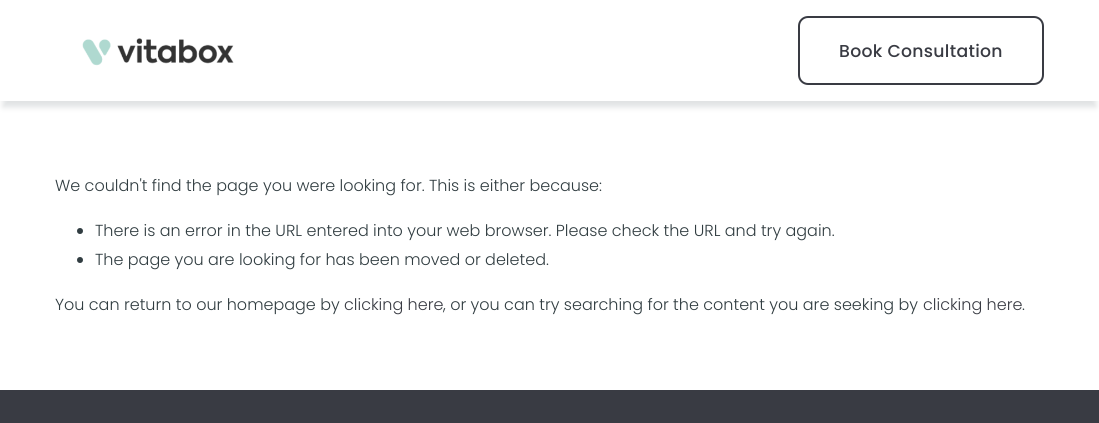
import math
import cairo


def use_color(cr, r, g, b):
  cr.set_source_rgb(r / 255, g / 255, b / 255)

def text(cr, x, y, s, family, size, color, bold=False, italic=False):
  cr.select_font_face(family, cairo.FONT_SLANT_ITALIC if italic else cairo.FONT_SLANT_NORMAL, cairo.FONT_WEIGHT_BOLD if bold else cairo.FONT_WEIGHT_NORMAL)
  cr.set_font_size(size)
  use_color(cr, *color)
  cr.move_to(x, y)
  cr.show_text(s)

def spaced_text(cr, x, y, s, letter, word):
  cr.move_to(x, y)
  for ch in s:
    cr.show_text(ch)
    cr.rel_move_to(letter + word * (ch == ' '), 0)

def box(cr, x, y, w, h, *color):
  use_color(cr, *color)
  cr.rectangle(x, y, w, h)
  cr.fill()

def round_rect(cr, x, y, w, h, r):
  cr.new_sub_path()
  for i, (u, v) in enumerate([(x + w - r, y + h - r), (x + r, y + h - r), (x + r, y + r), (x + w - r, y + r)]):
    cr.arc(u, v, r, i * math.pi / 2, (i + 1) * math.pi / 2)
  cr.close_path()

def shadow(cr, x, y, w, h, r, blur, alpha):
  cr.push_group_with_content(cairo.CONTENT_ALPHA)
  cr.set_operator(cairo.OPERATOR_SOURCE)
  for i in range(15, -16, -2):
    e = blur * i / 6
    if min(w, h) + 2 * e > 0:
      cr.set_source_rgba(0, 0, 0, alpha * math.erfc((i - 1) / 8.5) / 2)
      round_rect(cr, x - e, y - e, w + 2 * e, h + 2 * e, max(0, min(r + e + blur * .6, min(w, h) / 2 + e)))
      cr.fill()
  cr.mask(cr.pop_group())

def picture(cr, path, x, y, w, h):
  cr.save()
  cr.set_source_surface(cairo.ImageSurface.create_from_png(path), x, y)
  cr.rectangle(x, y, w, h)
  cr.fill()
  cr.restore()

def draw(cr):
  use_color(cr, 255, 255, 255)
  cr.paint()
  cr.save()
  cr.rectangle(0, 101, 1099, 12)
  cr.clip()
  use_color(cr, 224, 226, 227)
  shadow(cr, 3, 12, 1093, 95, 0, 3, 1)
  cr.restore()
  picture(cr, "img_01.png", 82, 38, 152, 28)
  round_rect(cr, 799, 17, 244, 67, 9)
  use_color(cr, 57, 59, 67)
  cr.stroke()
  use_color(cr, 49, 61, 65)
  cr.arc(80, 231, 3, 0, 2 * math.pi)
  cr.fill()
  cr.arc(80, 260, 3, 0, 2 * math.pi)
  cr.fill()
  box(cr, 0, 390, 1099, 33, 57, 59, 67)
  cr.select_font_face("Poppins Medium")
  cr.set_font_size(17.25)
  spaced_text(cr, 839, 57, "Book Consultation", 0.3, 0)
  text(cr, 55, 191, "We couldn't find the page you were looking for. This is either because:", "Poppins Light", 16, (49, 61, 65))
  text(cr, 95, 236, "There is an error in the URL entered into your web browser. Please check the URL and try again.", "Poppins Light", 16, (49, 61, 65))
  text(cr, 95, 265, "The page you are looking for has been moved or deleted.", "Poppins Light", 16, (49, 61, 65))
  text(cr, 55, 310, "You can return to our homepage by", "Poppins Light", 16, (49, 61, 65))
  text(cr, 344, 310, "clicking here", "Poppins Light", 16, (57, 59, 67))
  text(cr, 443, 310, ", or you can try searching for the content you are seeking by", "Poppins Light", 16, (49, 61, 65))
  text(cr, 923, 310, "clicking here", "Poppins Light", 16, (57, 59, 67))
  text(cr, 1022, 310, ".", "Poppins Light", 16, (49, 61, 65))


surface = cairo.ImageSurface(cairo.FORMAT_RGB24, 1099, 423)
cr = cairo.Context(surface)
options = cairo.FontOptions()
options.set_hint_metrics(cairo.HINT_METRICS_OFF)
options.set_hint_style(cairo.HINT_STYLE_NONE)
cr.set_font_options(options)
cr.set_miter_limit(4)
draw(cr)
surface.write_to_png("out.png")
